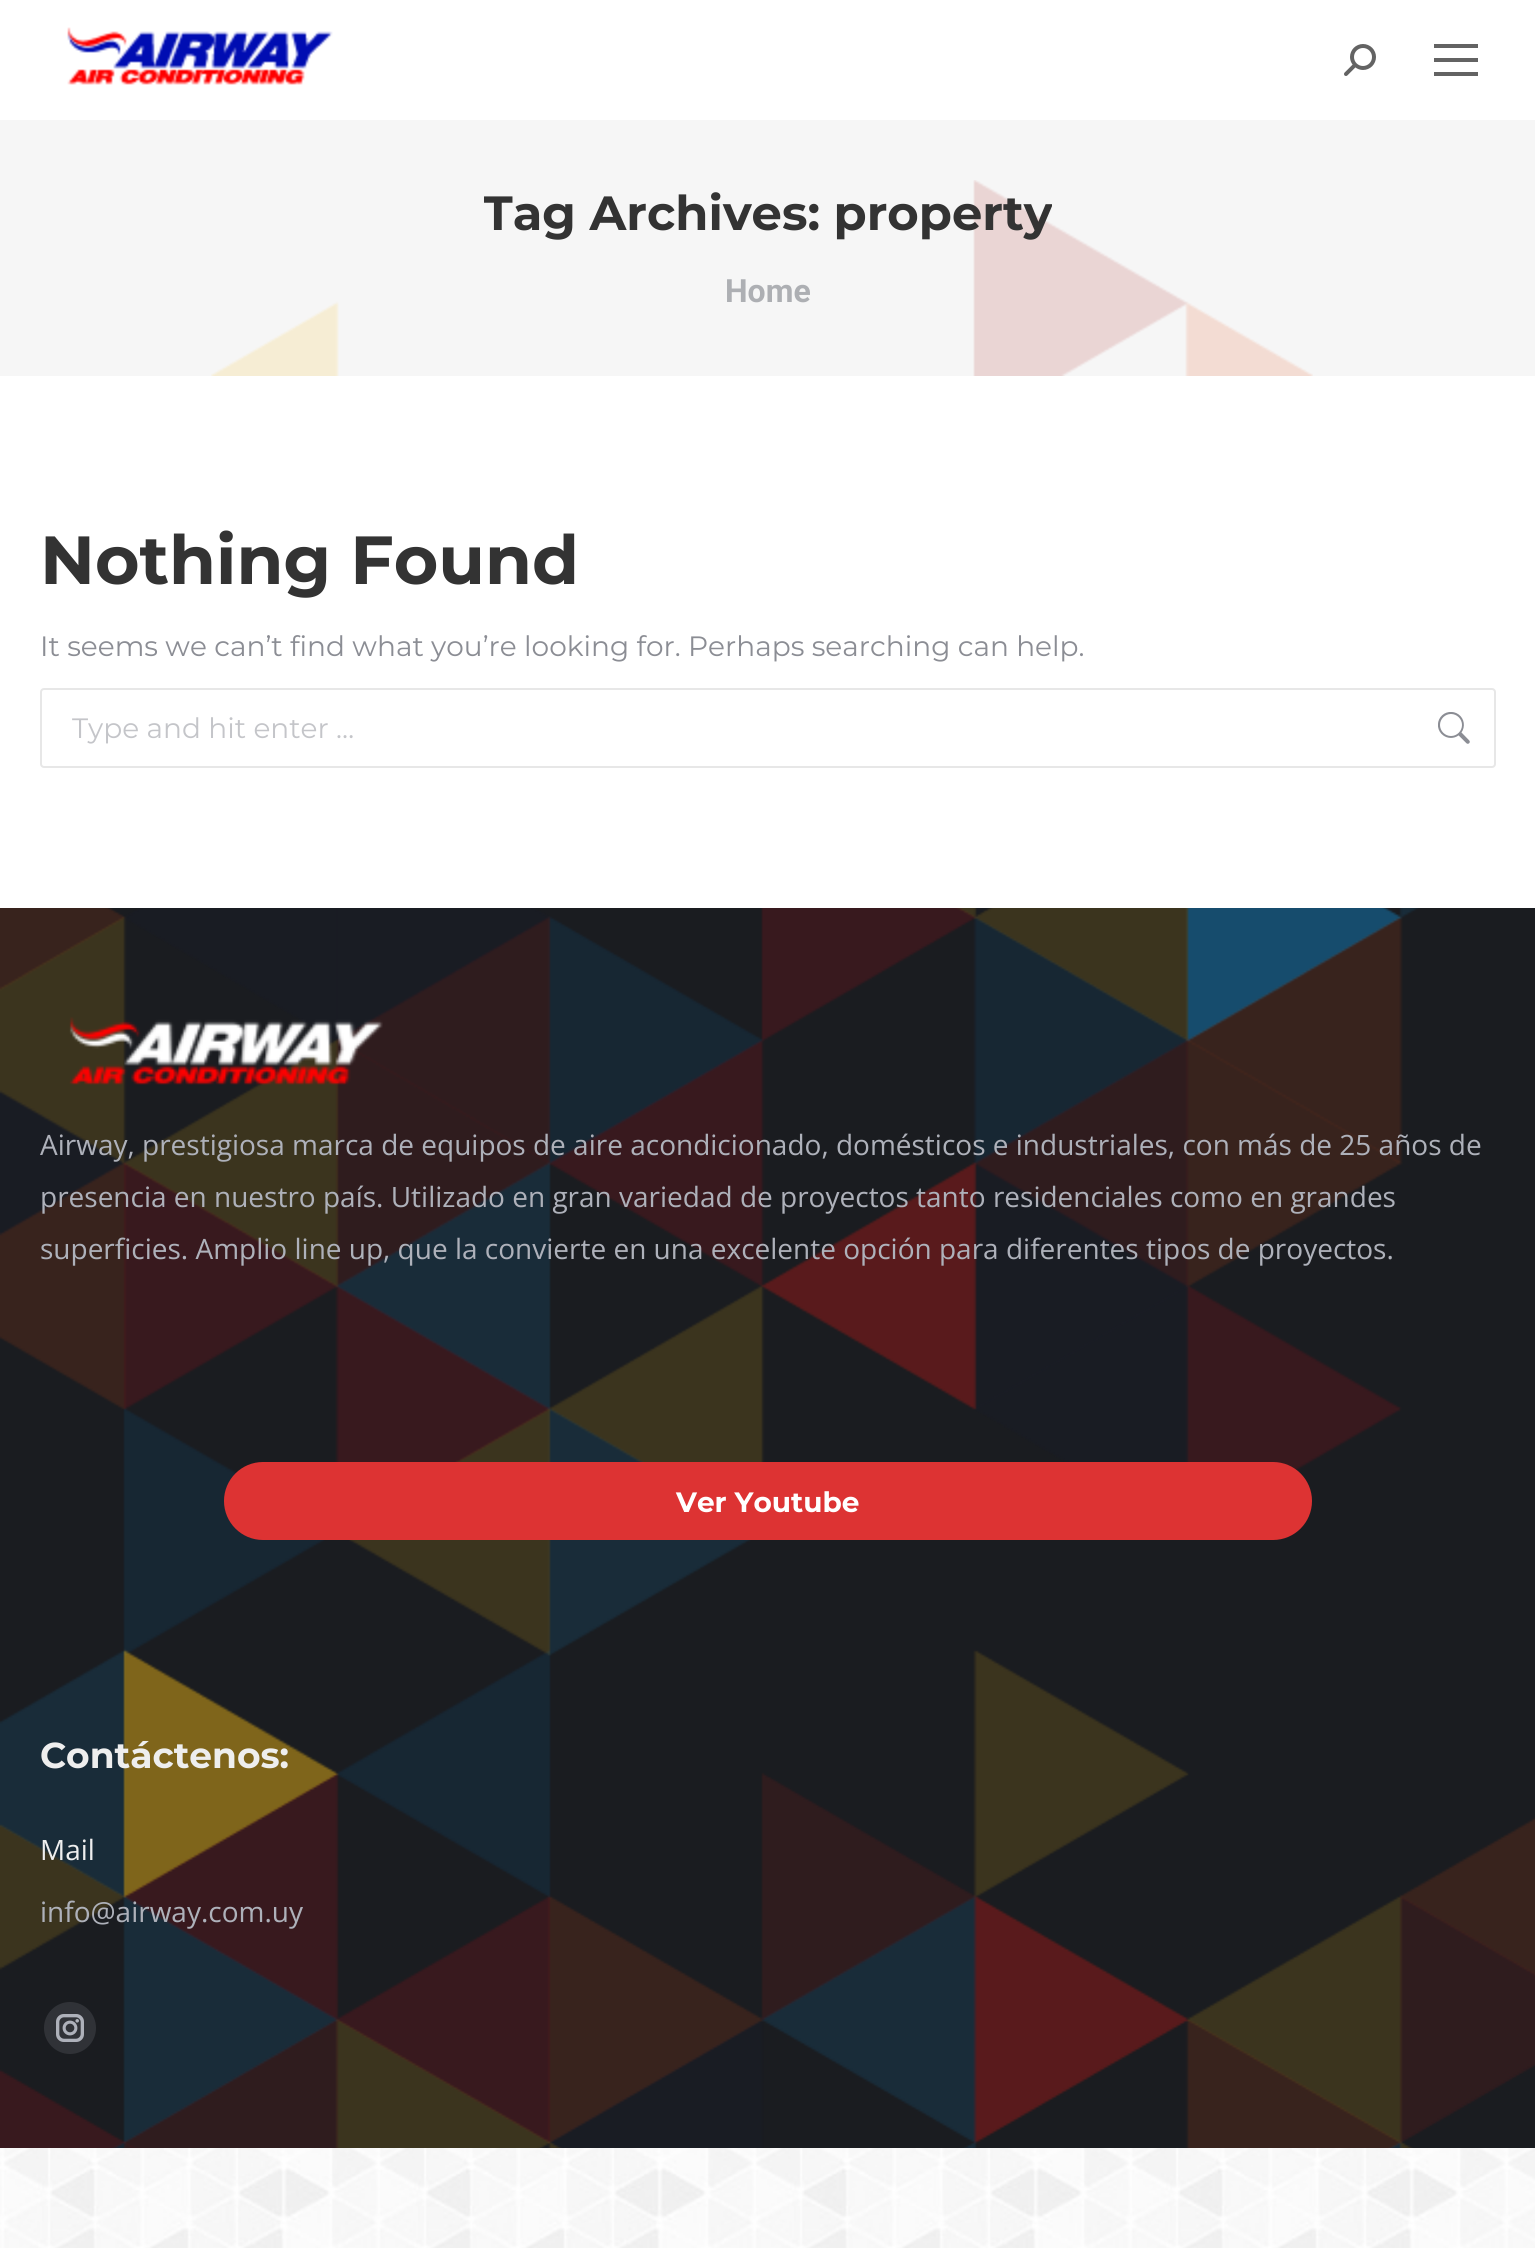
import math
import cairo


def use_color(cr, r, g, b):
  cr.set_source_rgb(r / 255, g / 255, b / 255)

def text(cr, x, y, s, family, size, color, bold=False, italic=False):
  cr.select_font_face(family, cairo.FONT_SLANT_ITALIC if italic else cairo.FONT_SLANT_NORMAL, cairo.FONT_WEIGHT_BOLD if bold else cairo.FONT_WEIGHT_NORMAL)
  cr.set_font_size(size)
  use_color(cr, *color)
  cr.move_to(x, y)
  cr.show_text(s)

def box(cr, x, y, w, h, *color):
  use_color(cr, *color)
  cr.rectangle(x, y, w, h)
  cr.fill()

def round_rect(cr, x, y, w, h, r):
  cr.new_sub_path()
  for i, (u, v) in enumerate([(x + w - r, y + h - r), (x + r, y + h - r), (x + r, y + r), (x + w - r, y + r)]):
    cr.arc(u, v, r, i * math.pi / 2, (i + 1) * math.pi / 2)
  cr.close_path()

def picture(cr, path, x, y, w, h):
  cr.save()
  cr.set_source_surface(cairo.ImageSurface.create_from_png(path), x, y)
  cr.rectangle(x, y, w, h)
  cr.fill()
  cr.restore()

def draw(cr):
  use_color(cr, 255, 255, 255)
  cr.paint()
  picture(cr, "img_01.png", 0, 2148, 1535, 100)
  picture(cr, "img_02.png", 67, 27, 266, 58)
  picture(cr, "img_03.png", 1344, 44, 32, 32)
  box(cr, 1434, 44, 44, 4, 99, 99, 99)
  box(cr, 1434, 58, 44, 4, 99, 99, 99)
  box(cr, 1434, 72, 44, 4, 99, 99, 99)
  box(cr, 0, 120, 1535, 256, 246, 246, 246)
  picture(cr, "img_04.png", 211, 180, 1102, 196)
  round_rect(cr, 41, 689, 1454, 78, 3)
  use_color(cr, 231, 231, 231)
  cr.stroke()
  picture(cr, "img_05.png", 1438, 712, 32, 32)
  box(cr, 0, 908, 1535, 1240, 26, 28, 32)
  picture(cr, "img_06.png", 0, 908, 1535, 1240)
  picture(cr, "img_07.png", 69, 1017, 314, 68)
  use_color(cr, 221, 51, 51)
  round_rect(cr, 224, 1462, 1088, 78, 39)
  cr.fill()
  use_color(cr, 48, 50, 55)
  cr.arc(70, 2028, 26, 0, 2 * math.pi)
  cr.fill()
  picture(cr, "img_08.png", 56, 2014, 28, 28)
  cr.save()
  cr.rectangle(484, 180, 568, 68)
  cr.clip()
  text(cr, 483, 230, "Tag Archives: property", "Montserrat", 48, (51, 51, 51), bold=True)
  cr.restore()
  text(cr, 725, 302, "Home", "Roboto", 32, (173, 175, 179), bold=True)
  text(cr, 40, 584, "Nothing Found", "Montserrat", 68, (51, 51, 51), bold=True)
  text(cr, 40, 656, "It seems we can’t find what you’re looking for. Perhaps searching can help.", "Montserrat", 28, (139, 141, 148))
  text(cr, 72, 738, "Type and hit enter …", "Montserrat", 28, (196, 197, 201))
  text(cr, 40, 1155, "Airway, prestigiosa marca de equipos de aire acondicionado, domésticos e industriales, con más de 25 años de", "Open Sans", 28, (174, 177, 186))
  text(cr, 40, 1207, "presencia en nuestro país. Utilizado en gran variedad de proyectos tanto residenciales como en grandes", "Open Sans", 28, (174, 177, 186))
  text(cr, 40, 1259, "superficies. Amplio line up, que la convierte en una excelente opción para diferentes tipos de proyectos.", "Open Sans", 28, (174, 177, 186))
  text(cr, 676, 1512, "Ver Youtube", "Montserrat", 28, (255, 255, 255), bold=True)
  text(cr, 40, 1768, "Contáctenos:", "Montserrat", 36, (238, 238, 238), bold=True)
  text(cr, 40, 1860, "Mail", "Open Sans", 28, (238, 238, 238))
  text(cr, 40, 1922, "info@airway.com.uy", "Open Sans", 28, (174, 177, 186))


surface = cairo.ImageSurface(cairo.FORMAT_RGB24, 1535, 2248)
cr = cairo.Context(surface)
options = cairo.FontOptions()
options.set_hint_metrics(cairo.HINT_METRICS_OFF)
options.set_hint_style(cairo.HINT_STYLE_NONE)
cr.set_font_options(options)
cr.set_miter_limit(4)
draw(cr)
surface.write_to_png("out.png")
